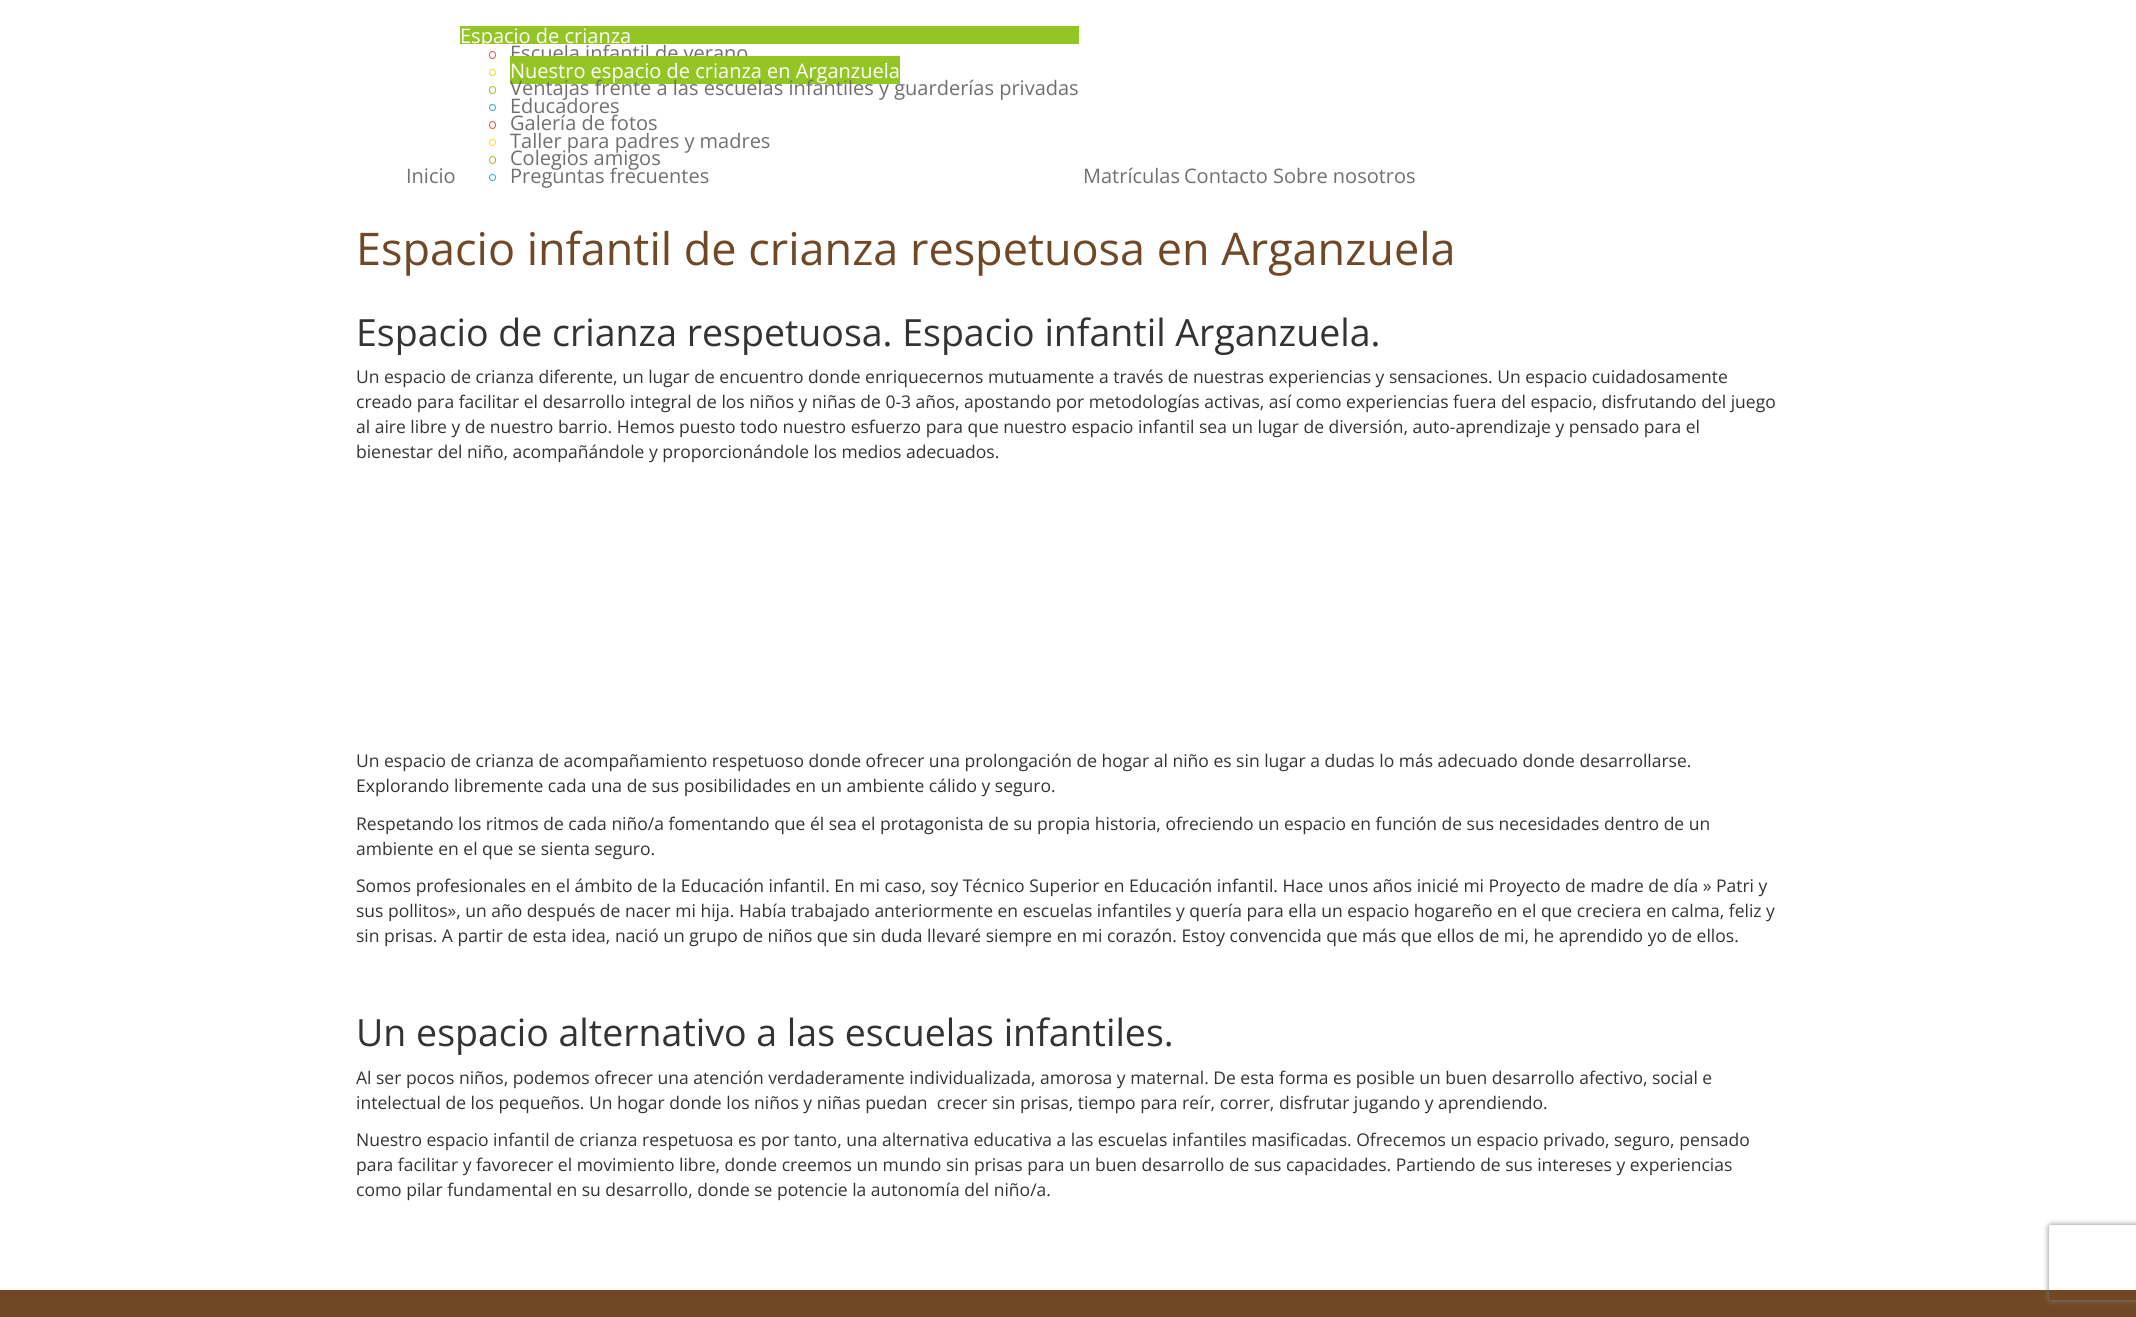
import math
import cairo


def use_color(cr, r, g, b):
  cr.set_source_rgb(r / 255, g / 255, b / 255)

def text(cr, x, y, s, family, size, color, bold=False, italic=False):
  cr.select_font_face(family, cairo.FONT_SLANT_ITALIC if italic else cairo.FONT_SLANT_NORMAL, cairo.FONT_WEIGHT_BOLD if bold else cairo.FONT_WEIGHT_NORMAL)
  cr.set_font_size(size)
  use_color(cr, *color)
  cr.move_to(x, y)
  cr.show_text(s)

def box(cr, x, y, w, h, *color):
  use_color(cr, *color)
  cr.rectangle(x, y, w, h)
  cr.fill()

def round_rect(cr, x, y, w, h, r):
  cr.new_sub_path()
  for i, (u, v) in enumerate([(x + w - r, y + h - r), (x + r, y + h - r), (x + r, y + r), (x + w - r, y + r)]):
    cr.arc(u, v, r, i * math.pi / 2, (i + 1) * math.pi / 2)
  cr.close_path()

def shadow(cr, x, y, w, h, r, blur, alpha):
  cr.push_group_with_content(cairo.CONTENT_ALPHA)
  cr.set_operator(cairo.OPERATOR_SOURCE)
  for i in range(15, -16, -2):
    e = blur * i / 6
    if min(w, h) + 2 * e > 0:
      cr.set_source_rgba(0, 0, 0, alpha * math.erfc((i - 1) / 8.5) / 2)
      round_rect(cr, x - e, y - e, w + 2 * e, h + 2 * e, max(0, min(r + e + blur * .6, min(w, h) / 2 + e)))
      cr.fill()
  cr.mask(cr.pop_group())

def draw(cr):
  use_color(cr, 255, 255, 255)
  cr.paint()
  box(cr, 460, 26, 619, 18, 147, 197, 36)
  round_rect(cr, 489.5, 51.5, 6, 7, 3)
  use_color(cr, 242, 81, 65)
  cr.set_line_width(1)
  cr.stroke()
  cr.arc(492.5, 72.5, 3, 0, 2 * math.pi)
  use_color(cr, 255, 216, 35)
  cr.stroke()
  round_rect(cr, 489.5, 86.5, 6, 7, 3)
  use_color(cr, 147, 197, 36)
  cr.stroke()
  cr.arc(492.5, 107.5, 3, 0, 2 * math.pi)
  use_color(cr, 40, 168, 227)
  cr.stroke()
  round_rect(cr, 489.5, 121.5, 6, 7, 3)
  use_color(cr, 242, 81, 65)
  cr.stroke()
  cr.arc(492.5, 142.5, 3, 0, 2 * math.pi)
  use_color(cr, 255, 216, 35)
  cr.stroke()
  round_rect(cr, 489.5, 156.5, 6, 7, 3)
  use_color(cr, 147, 197, 36)
  cr.stroke()
  cr.arc(492.5, 177.5, 3, 0, 2 * math.pi)
  use_color(cr, 40, 168, 227)
  cr.stroke()
  box(cr, 0, 1290, 2136, 27, 112, 72, 37)
  cr.save()
  cr.set_fill_rule(cairo.FILL_RULE_EVEN_ODD)
  cr.new_path()
  cr.move_to(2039, 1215)
  cr.line_to(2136, 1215)
  cr.line_to(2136, 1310)
  cr.line_to(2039, 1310)
  cr.close_path()
  cr.move_to(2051.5, 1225)
  cr.line_to(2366.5, 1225)
  cr.curve_to(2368, 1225, 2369, 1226, 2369, 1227.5)
  cr.line_to(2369, 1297.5)
  cr.curve_to(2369, 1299, 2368, 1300, 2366.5, 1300)
  cr.line_to(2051.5, 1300)
  cr.curve_to(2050, 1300, 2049, 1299, 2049, 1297.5)
  cr.line_to(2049, 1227.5)
  cr.curve_to(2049, 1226, 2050, 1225, 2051.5, 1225)
  cr.close_path()
  cr.clip()
  use_color(cr, 128, 128, 128)
  shadow(cr, 2049, 1225, 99, 75, 2.5, 3, 1)
  cr.restore()
  text(cr, 406, 183, "Inicio", "Open Sans", 20, (112, 112, 112))
  text(cr, 460, 43, "Espacio de crianza", "Open Sans", 20, (255, 255, 255))
  text(cr, 510, 60, "Escuela infantil de verano", "Open Sans", 20, (112, 112, 112))
  box(cr, 510, 56, 390, 28, 147, 197, 36)
  text(cr, 510, 78, "Nuestro espacio de crianza en Arganzuela", "Open Sans", 20, (255, 255, 255))
  text(cr, 510, 95, "Ventajas frente a las escuelas infantiles y guarderías privadas", "Open Sans", 20, (112, 112, 112))
  text(cr, 510, 113, "Educadores", "Open Sans", 20, (112, 112, 112))
  text(cr, 510, 130, "Galería de fotos", "Open Sans", 20, (112, 112, 112))
  text(cr, 510, 148, "Taller para padres y madres", "Open Sans", 20, (112, 112, 112))
  text(cr, 510, 165, "Colegios amigos", "Open Sans", 20, (112, 112, 112))
  text(cr, 510, 183, "Preguntas frecuentes", "Open Sans", 20, (112, 112, 112))
  text(cr, 1083, 183, "Matrículas", "Open Sans", 20, (112, 112, 112))
  text(cr, 1184, 183, "Contacto", "Open Sans", 20, (112, 112, 112))
  text(cr, 1273, 183, "Sobre nosotros", "Open Sans", 20, (112, 112, 112))
  text(cr, 356, 265, "Espacio infantil de crianza respetuosa en Arganzuela", "Open Sans", 45, (112, 72, 37))
  text(cr, 356, 346, "Espacio de crianza respetuosa. Espacio infantil Arganzuela.", "Open Sans", 37.5, (51, 51, 51))
  text(cr, 356, 383, "Un espacio de crianza diferente, un lugar de encuentro donde enriquecernos mutuamente a través de nuestras experiencias y sensaciones. Un espacio cuidadosamente", "Open Sans", 17.5, (51, 51, 51))
  text(cr, 356, 408, "creado para facilitar el desarrollo integral de los niños y niñas de 0-3 años, apostando por metodologías activas, así como experiencias fuera del espacio, disfrutando del juego", "Open Sans", 17.5, (51, 51, 51))
  text(cr, 356, 433, "al aire libre y de nuestro barrio. Hemos puesto todo nuestro esfuerzo para que nuestro espacio infantil sea un lugar de diversión, auto-aprendizaje y pensado para el", "Open Sans", 17.5, (51, 51, 51))
  text(cr, 356, 458, "bienestar del niño, acompañándole y proporcionándole los medios adecuados.", "Open Sans", 17.5, (51, 51, 51))
  text(cr, 356, 767, "Un espacio de crianza de acompañamiento respetuoso donde ofrecer una prolongación de hogar al niño es sin lugar a dudas lo más adecuado donde desarrollarse.", "Open Sans", 17.5, (51, 51, 51))
  text(cr, 356, 792, "Explorando libremente cada una de sus posibilidades en un ambiente cálido y seguro.", "Open Sans", 17.5, (51, 51, 51))
  text(cr, 356, 830, "Respetando los ritmos de cada niño/a fomentando que él sea el protagonista de su propia historia, ofreciendo un espacio en función de sus necesidades dentro de un", "Open Sans", 17.5, (51, 51, 51))
  text(cr, 356, 855, "ambiente en el que se sienta seguro.", "Open Sans", 17.5, (51, 51, 51))
  text(cr, 356, 892, "Somos profesionales en el ámbito de la Educación infantil. En mi caso, soy Técnico Superior en Educación infantil. Hace unos años inicié mi Proyecto de madre de día » Patri y", "Open Sans", 17.5, (51, 51, 51))
  text(cr, 356, 917, "sus pollitos», un año después de nacer mi hija. Había trabajado anteriormente en escuelas infantiles y quería para ella un espacio hogareño en el que creciera en calma, feliz y", "Open Sans", 17.5, (51, 51, 51))
  text(cr, 356, 942, "sin prisas. A partir de esta idea, nació un grupo de niños que sin duda llevaré siempre en mi corazón. Estoy convencida que más que ellos de mi, he aprendido yo de ellos.", "Open Sans", 17.5, (51, 51, 51))
  text(cr, 356, 1046, "Un espacio alternativo a las escuelas infantiles.", "Open Sans", 37.5, (51, 51, 51))
  text(cr, 356, 1084, "Al ser pocos niños, podemos ofrecer una atención verdaderamente individualizada, amorosa y maternal. De esta forma es posible un buen desarrollo afectivo, social e", "Open Sans", 17.5, (51, 51, 51))
  text(cr, 356, 1109, "intelectual de los pequeños. Un hogar donde los niños y niñas puedan  crecer sin prisas, tiempo para reír, correr, disfrutar jugando y aprendiendo.", "Open Sans", 17.5, (51, 51, 51))
  text(cr, 356, 1146, "Nuestro espacio infantil de crianza respetuosa es por tanto, una alternativa educativa a las escuelas infantiles masificadas. Ofrecemos un espacio privado, seguro, pensado", "Open Sans", 17.5, (51, 51, 51))
  text(cr, 356, 1171, "para facilitar y favorecer el movimiento libre, donde creemos un mundo sin prisas para un buen desarrollo de sus capacidades. Partiendo de sus intereses y experiencias", "Open Sans", 17.5, (51, 51, 51))
  text(cr, 356, 1196, "como pilar fundamental en su desarrollo, donde se potencie la autonomía del niño/a.", "Open Sans", 17.5, (51, 51, 51))


surface = cairo.ImageSurface(cairo.FORMAT_RGB24, 2136, 1317)
cr = cairo.Context(surface)
options = cairo.FontOptions()
options.set_hint_metrics(cairo.HINT_METRICS_OFF)
options.set_hint_style(cairo.HINT_STYLE_NONE)
cr.set_font_options(options)
cr.set_miter_limit(4)
draw(cr)
surface.write_to_png("out.png")
